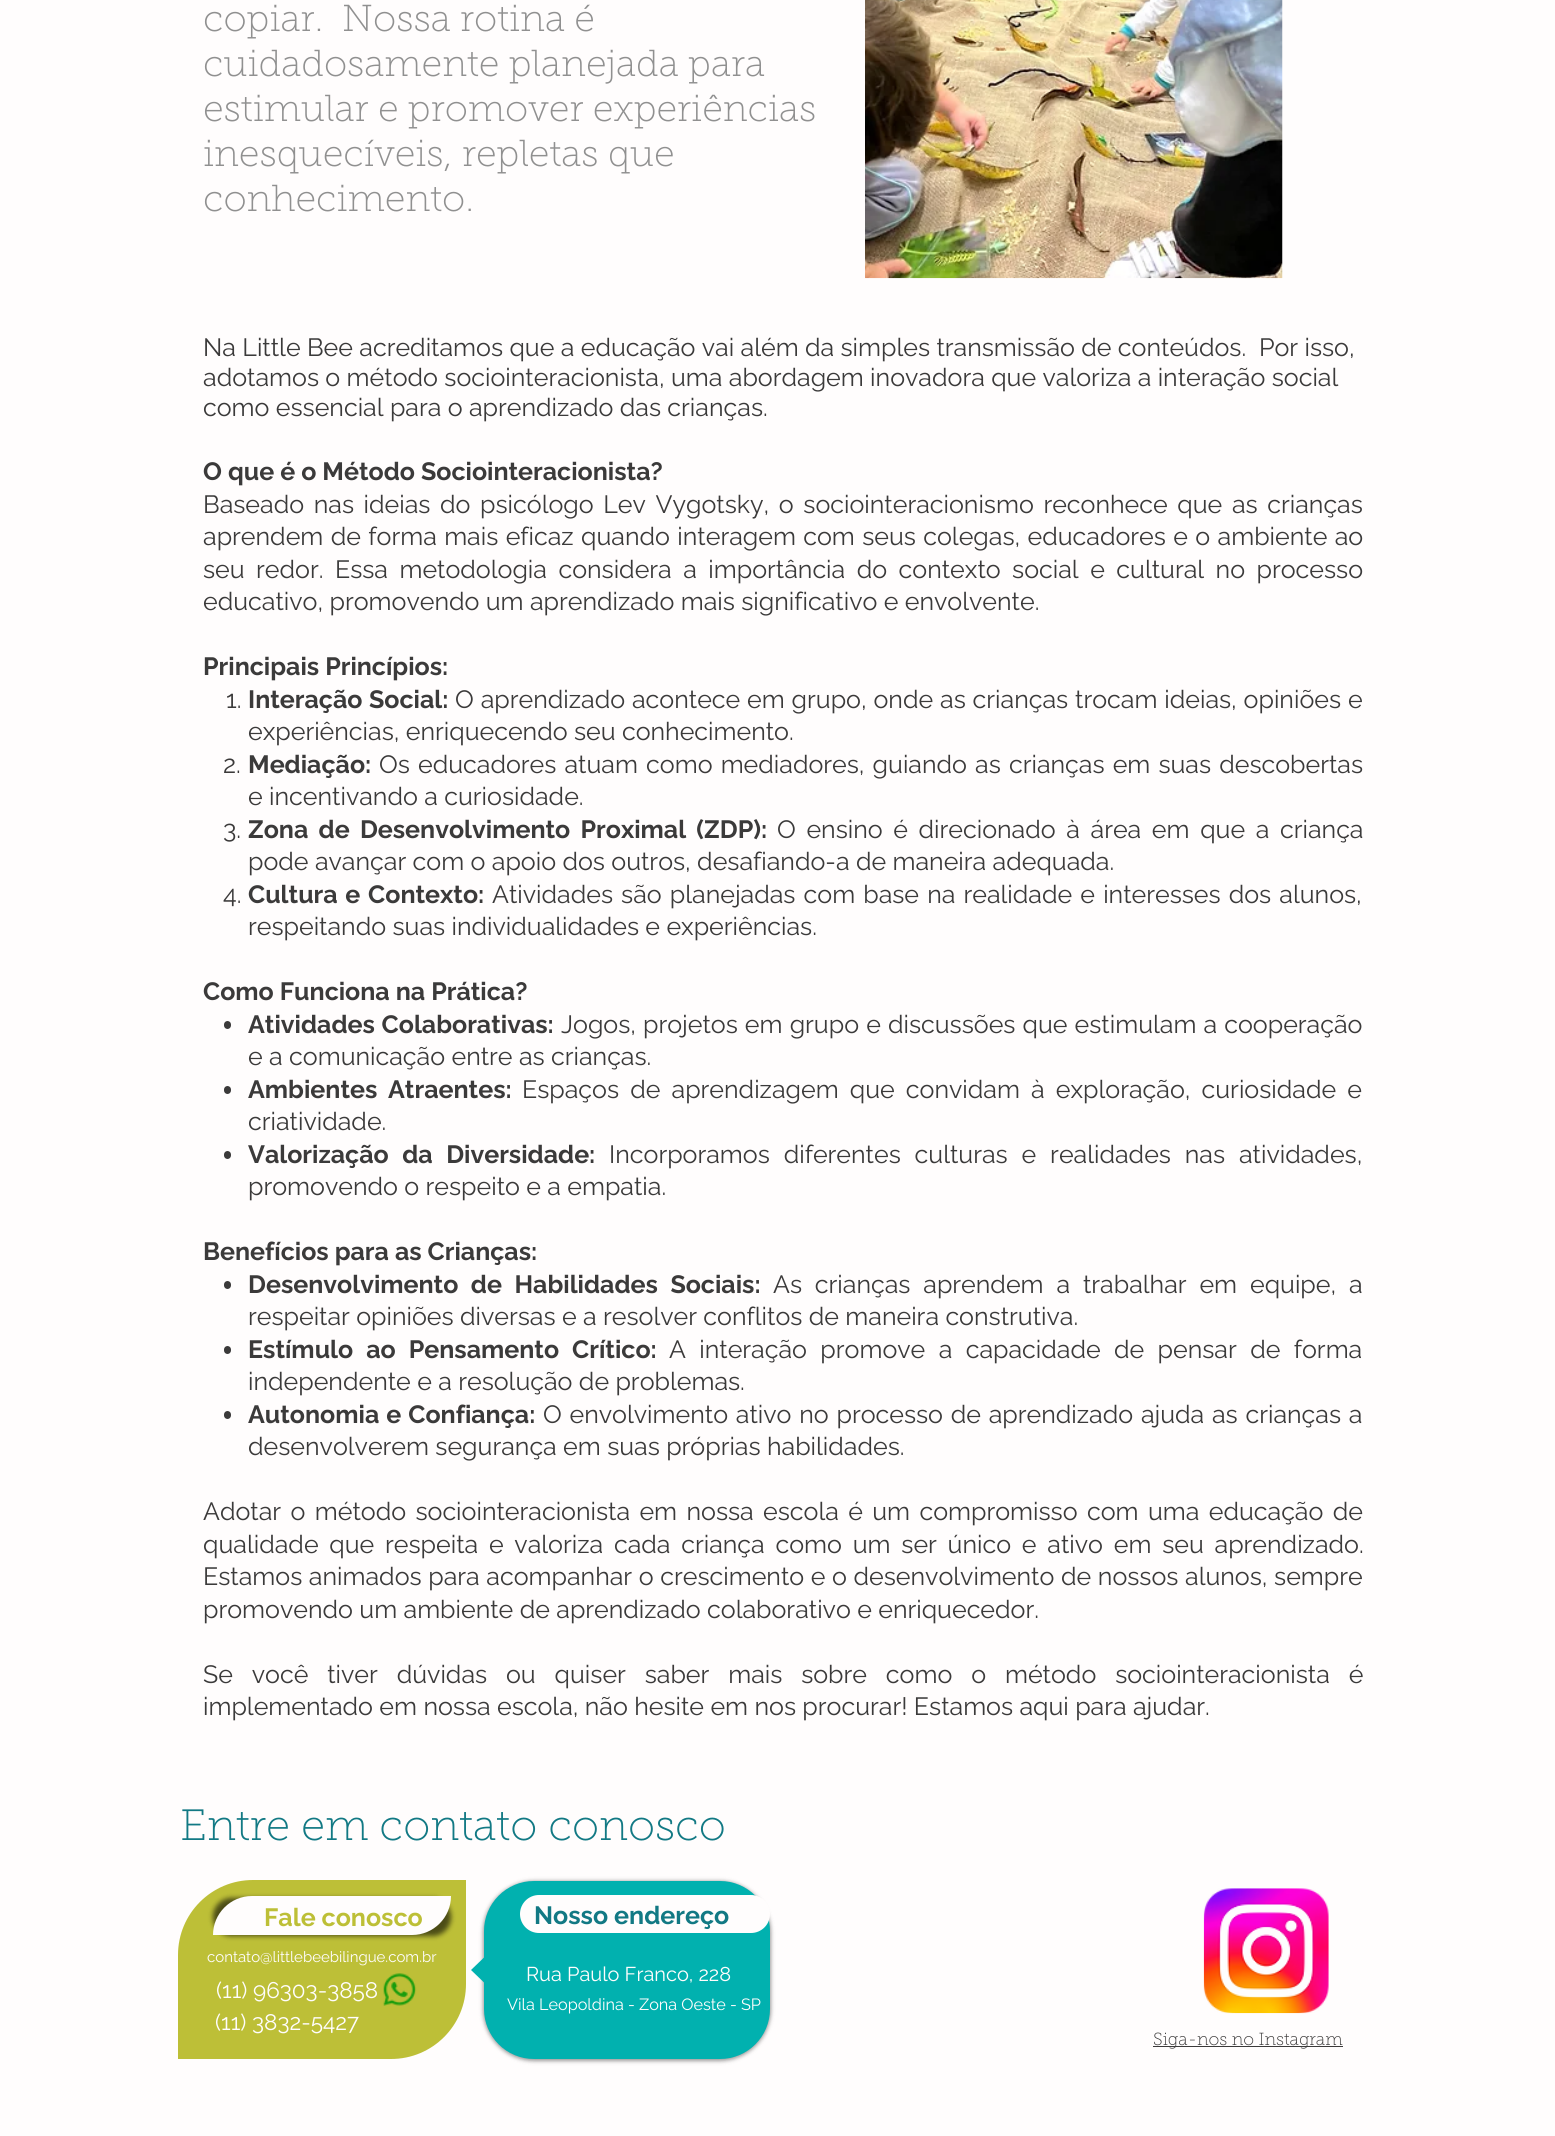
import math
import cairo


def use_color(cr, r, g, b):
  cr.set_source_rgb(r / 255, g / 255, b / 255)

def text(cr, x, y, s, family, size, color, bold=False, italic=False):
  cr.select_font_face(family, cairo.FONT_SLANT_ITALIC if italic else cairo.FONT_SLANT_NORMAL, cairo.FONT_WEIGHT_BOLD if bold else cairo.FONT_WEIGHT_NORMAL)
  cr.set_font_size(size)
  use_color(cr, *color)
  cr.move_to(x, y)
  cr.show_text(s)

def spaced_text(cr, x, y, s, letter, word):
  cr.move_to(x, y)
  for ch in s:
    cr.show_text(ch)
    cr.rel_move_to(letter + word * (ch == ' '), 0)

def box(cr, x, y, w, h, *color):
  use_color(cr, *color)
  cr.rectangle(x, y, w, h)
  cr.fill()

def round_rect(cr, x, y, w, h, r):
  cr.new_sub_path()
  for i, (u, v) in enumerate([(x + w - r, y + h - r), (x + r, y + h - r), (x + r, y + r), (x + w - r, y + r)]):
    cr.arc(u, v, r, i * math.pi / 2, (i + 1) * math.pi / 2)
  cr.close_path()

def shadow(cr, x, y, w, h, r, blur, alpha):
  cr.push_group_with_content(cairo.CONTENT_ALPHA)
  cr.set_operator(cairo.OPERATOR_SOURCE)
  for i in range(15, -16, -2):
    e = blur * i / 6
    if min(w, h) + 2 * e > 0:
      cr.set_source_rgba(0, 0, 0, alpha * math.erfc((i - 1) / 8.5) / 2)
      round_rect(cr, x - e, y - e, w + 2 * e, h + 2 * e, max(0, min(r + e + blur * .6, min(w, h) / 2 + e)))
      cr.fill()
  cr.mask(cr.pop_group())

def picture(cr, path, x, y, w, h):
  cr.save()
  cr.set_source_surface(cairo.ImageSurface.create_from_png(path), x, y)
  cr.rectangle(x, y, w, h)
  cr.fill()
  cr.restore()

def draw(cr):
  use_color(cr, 255, 253, 253)
  cr.paint()
  picture(cr, "img_01.png", 865, 0, 418, 279)
  use_color(cr, 59, 58, 58)
  round_rect(cr, 224, 1021, 7, 8, 3.5)
  cr.fill()
  round_rect(cr, 224, 1086, 7, 8, 3.5)
  cr.fill()
  round_rect(cr, 224, 1151, 7, 8, 3.5)
  cr.fill()
  round_rect(cr, 224, 1281, 7, 8, 3.5)
  cr.fill()
  round_rect(cr, 224, 1346, 7, 8, 3.5)
  cr.fill()
  round_rect(cr, 224, 1411, 7, 8, 3.5)
  cr.fill()
  use_color(cr, 189, 191, 55)
  cr.new_path()
  cr.move_to(253, 1880)
  cr.line_to(466, 1880)
  cr.line_to(466, 1984)
  cr.curve_to(466, 2025.5, 432.5, 2059, 391, 2059)
  cr.line_to(178, 2059)
  cr.line_to(178, 1955)
  cr.curve_to(178, 1913.5, 211.5, 1880, 253, 1880)
  cr.close_path()
  cr.fill()
  use_color(cr, 0, 0, 0)
  shadow(cr, 213, 1898, 238, 38, 39, 2.5, 0.6)
  use_color(cr, 255, 253, 253)
  cr.new_path()
  cr.move_to(252, 1896)
  cr.line_to(451, 1896)
  cr.curve_to(451, 1917.5, 433.5, 1935, 412, 1935)
  cr.line_to(213, 1935)
  cr.curve_to(213, 1913.5, 230.5, 1896, 252, 1896)
  cr.close_path()
  cr.fill()
  picture(cr, "img_02.png", 383, 1973, 34, 33)
  use_color(cr, 0, 0, 0)
  shadow(cr, 483, 1881, 288, 180, 51, 2, 0.4)
  use_color(cr, 1, 177, 175)
  round_rect(cr, 484, 1881, 286, 178, 50)
  cr.fill()
  cr.new_path()
  cr.move_to(484, 1957.5)
  cr.line_to(484, 1982.5)
  cr.line_to(471, 1970)
  cr.close_path()
  cr.fill()
  use_color(cr, 255, 253, 253)
  round_rect(cr, 520, 1895, 250, 38, 19)
  cr.fill()
  picture(cr, "img_03.png", 1203, 1888, 126, 126)
  box(cr, 1153, 2046, 190, 1, 59, 58, 58)
  text(cr, 203, 31, "copiar.  Nossa rotina é", "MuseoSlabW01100 Thin", 37.5, (144, 144, 144))
  text(cr, 203, 76, "cuidadosamente planejada para", "MuseoSlabW01100 Thin", 37.5, (144, 144, 144))
  text(cr, 203, 121, "estimular e promover experiências", "MuseoSlabW01100 Thin", 37.5, (144, 144, 144))
  text(cr, 203, 166, "inesquecíveis, repletas que", "MuseoSlabW01100 Thin", 37.5, (144, 144, 144))
  text(cr, 203, 211, "conhecimento.", "MuseoSlabW01100 Thin", 37.5, (144, 144, 144))
  text(cr, 203, 356, "Na Little Bee acreditamos que a educação vai além da simples transmissão de conteúdos.  Por isso,", "Raleway", 25, (59, 58, 58))
  text(cr, 203, 386, "adotamos o método sociointeracionista, uma abordagem inovadora que valoriza a interação social", "Raleway", 25, (59, 58, 58))
  text(cr, 203, 416, "como essencial para o aprendizado das crianças.", "Raleway", 25, (59, 58, 58))
  text(cr, 203, 480, "O que é o Método Sociointeracionista?", "Raleway", 25, (59, 58, 58), bold=True)
  cr.select_font_face("Raleway")
  spaced_text(cr, 203, 513, "Baseado nas ideias do psicólogo Lev Vygotsky, o sociointeracionismo reconhece que as crianças", 0, 3.25)
  spaced_text(cr, 203, 545, "aprendem de forma mais eficaz quando interagem com seus colegas, educadores e o ambiente ao", 0, 1)
  spaced_text(cr, 203, 578, "seu redor. Essa metodologia considera a importância do contexto social e cultural no processo", 0, 5.1)
  text(cr, 203, 610, "educativo, promovendo um aprendizado mais significativo e envolvente.", "Raleway", 25, (59, 58, 58))
  text(cr, 203, 675, "Principais Princípios:", "Raleway", 25, (59, 58, 58), bold=True)
  text(cr, 226, 708, "1.", "Raleway", 25, (59, 58, 58))
  cr.select_font_face("Raleway", cairo.FONT_SLANT_NORMAL, cairo.FONT_WEIGHT_BOLD)
  spaced_text(cr, 248, 708, "Interação Social:", 0, 0.5)
  cr.select_font_face("Raleway")
  spaced_text(cr, 455, 708, "O aprendizado acontece em grupo, onde as crianças trocam ideias, opiniões e", 0, 0.5)
  text(cr, 248, 740, "experiências, enriquecendo seu conhecimento.", "Raleway", 25, (59, 58, 58))
  text(cr, 223, 773, "2.", "Raleway", 25, (59, 58, 58))
  text(cr, 248, 773, "Mediação:", "Raleway", 25, (59, 58, 58), bold=True)
  cr.select_font_face("Raleway")
  spaced_text(cr, 379, 773, "Os educadores atuam como mediadores, guiando as crianças em suas descobertas", 0, 1.75)
  text(cr, 248, 805, "e incentivando a curiosidade.", "Raleway", 25, (59, 58, 58))
  text(cr, 223, 838, "3.", "Raleway", 25, (59, 58, 58))
  cr.select_font_face("Raleway", cairo.FONT_SLANT_NORMAL, cairo.FONT_WEIGHT_BOLD)
  spaced_text(cr, 248, 838, "Zona de Desenvolvimento Proximal (ZDP):", 0, 4.25)
  cr.select_font_face("Raleway")
  spaced_text(cr, 777, 838, "O ensino é direcionado à área em que a criança", 0, 4.25)
  text(cr, 248, 870, "pode avançar com o apoio dos outros, desafiando-a de maneira adequada.", "Raleway", 25, (59, 58, 58))
  text(cr, 223, 903, "4.", "Raleway", 25, (59, 58, 58))
  cr.select_font_face("Raleway", cairo.FONT_SLANT_NORMAL, cairo.FONT_WEIGHT_BOLD)
  spaced_text(cr, 248, 903, "Cultura e Contexto:", 0, 1.75)
  cr.select_font_face("Raleway")
  spaced_text(cr, 492, 903, "Atividades são planejadas com base na realidade e interesses dos alunos,", 0, 1.75)
  text(cr, 248, 935, "respeitando suas individualidades e experiências.", "Raleway", 25, (59, 58, 58))
  text(cr, 203, 1000, "Como Funciona na Prática?", "Raleway", 25, (59, 58, 58), bold=True)
  spaced_text(cr, 248, 1033, "Atividades Colaborativas:", 0, 0.75)
  cr.select_font_face("Raleway")
  spaced_text(cr, 561, 1033, "Jogos, projetos em grupo e discussões que estimulam a cooperação", 0, 0.75)
  text(cr, 248, 1065, "e a comunicação entre as crianças.", "Raleway", 25, (59, 58, 58))
  cr.select_font_face("Raleway", cairo.FONT_SLANT_NORMAL, cairo.FONT_WEIGHT_BOLD)
  spaced_text(cr, 248, 1098, "Ambientes Atraentes:", 0, 4.75)
  cr.select_font_face("Raleway")
  spaced_text(cr, 522, 1098, "Espaços de aprendizagem que convidam à exploração, curiosidade e", 0, 4.75)
  text(cr, 248, 1130, "criatividade.", "Raleway", 25, (59, 58, 58))
  cr.select_font_face("Raleway", cairo.FONT_SLANT_NORMAL, cairo.FONT_WEIGHT_BOLD)
  spaced_text(cr, 248, 1163, "Valorização da Diversidade:", 0, 7.5)
  cr.select_font_face("Raleway")
  spaced_text(cr, 609, 1163, "Incorporamos diferentes culturas e realidades nas atividades,", 0, 7.5)
  text(cr, 248, 1195, "promovendo o respeito e a empatia.", "Raleway", 25, (59, 58, 58))
  text(cr, 203, 1260, "Benefícios para as Crianças:", "Raleway", 25, (59, 58, 58), bold=True)
  spaced_text(cr, 248, 1293, "Desenvolvimento de Habilidades Sociais:", 0, 6.5)
  cr.select_font_face("Raleway")
  spaced_text(cr, 773, 1293, "As crianças aprendem a trabalhar em equipe, a", 0, 6.5)
  text(cr, 248, 1325, "respeitar opiniões diversas e a resolver conflitos de maneira construtiva.", "Raleway", 25, (59, 58, 58))
  cr.select_font_face("Raleway", cairo.FONT_SLANT_NORMAL, cairo.FONT_WEIGHT_BOLD)
  spaced_text(cr, 248, 1358, "Estímulo ao Pensamento Crítico:", 0, 7)
  cr.select_font_face("Raleway")
  spaced_text(cr, 669, 1358, "A interação promove a capacidade de pensar de forma", 0, 7)
  text(cr, 248, 1390, "independente e a resolução de problemas.", "Raleway", 25, (59, 58, 58))
  cr.select_font_face("Raleway", cairo.FONT_SLANT_NORMAL, cairo.FONT_WEIGHT_BOLD)
  spaced_text(cr, 248, 1423, "Autonomia e Confiança:", 0, 1)
  cr.select_font_face("Raleway")
  spaced_text(cr, 543, 1423, "O envolvimento ativo no processo de aprendizado ajuda as crianças a", 0, 1.4)
  text(cr, 248, 1455, "desenvolverem segurança em suas próprias habilidades.", "Raleway", 25, (59, 58, 58))
  spaced_text(cr, 203, 1520, "Adotar o método sociointeracionista em nossa escola é um compromisso com uma educação de", 0, 3)
  spaced_text(cr, 203, 1553, "qualidade que respeita e valoriza cada criança como um ser único e ativo em seu aprendizado.", 0, 4.4)
  spaced_text(cr, 203, 1585, "Estamos animados para acompanhar o crescimento e o desenvolvimento de nossos alunos, sempre", 0, 0.25)
  text(cr, 203, 1618, "promovendo um ambiente de aprendizado colaborativo e enriquecedor.", "Raleway", 25, (59, 58, 58))
  spaced_text(cr, 203, 1683, "Se você tiver dúvidas ou quiser saber mais sobre como o método sociointeracionista é", 0, 12.5)
  text(cr, 203, 1715, "implementado em nossa escola, não hesite em nos procurar! Estamos aqui para ajudar.", "Raleway", 25, (59, 58, 58))
  text(cr, 180, 1840, "Entre em contato conosco", "MuseoSlabW01100 Thin", 43.75, (18, 121, 132))
  text(cr, 264, 1926, "Fale conosco", "Raleway", 25, (189, 191, 55), bold=True)
  text(cr, 207, 1962, "contato@littlebeebilingue.com.br", "Raleway", 15, (255, 253, 253))
  text(cr, 216, 1998, "(11) 96303-3858", "Raleway", 22.5, (255, 253, 253))
  text(cr, 215, 2030, "(11) 3832-5427", "Raleway", 22.5, (255, 253, 253))
  text(cr, 534, 1924, "Nosso endereço", "Raleway", 25, (18, 121, 132), bold=True)
  text(cr, 526, 1981, "Rua Paulo Franco, 228", "Raleway", 20, (255, 253, 253))
  text(cr, 507, 2010, "Vila Leopoldina - Zona Oeste - SP", "Raleway", 16.25, (255, 253, 253))
  text(cr, 1153, 2045, "Siga-nos no Instagram", "MuseoSlabW01100 Thin", 17.5, (59, 58, 58))


surface = cairo.ImageSurface(cairo.FORMAT_RGB24, 1555, 2136)
cr = cairo.Context(surface)
options = cairo.FontOptions()
options.set_hint_metrics(cairo.HINT_METRICS_OFF)
options.set_hint_style(cairo.HINT_STYLE_NONE)
cr.set_font_options(options)
cr.set_miter_limit(4)
draw(cr)
surface.write_to_png("out.png")
